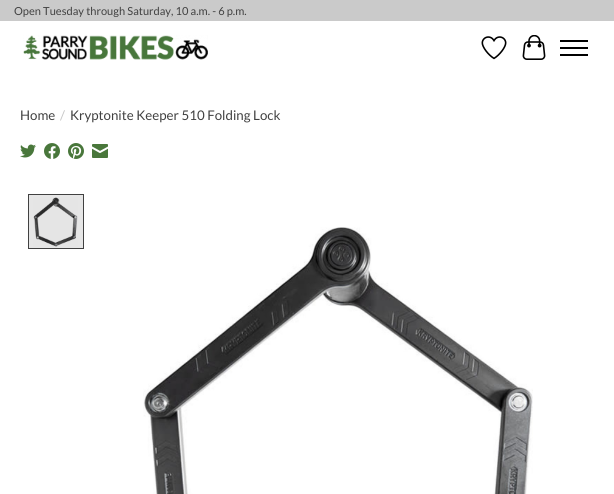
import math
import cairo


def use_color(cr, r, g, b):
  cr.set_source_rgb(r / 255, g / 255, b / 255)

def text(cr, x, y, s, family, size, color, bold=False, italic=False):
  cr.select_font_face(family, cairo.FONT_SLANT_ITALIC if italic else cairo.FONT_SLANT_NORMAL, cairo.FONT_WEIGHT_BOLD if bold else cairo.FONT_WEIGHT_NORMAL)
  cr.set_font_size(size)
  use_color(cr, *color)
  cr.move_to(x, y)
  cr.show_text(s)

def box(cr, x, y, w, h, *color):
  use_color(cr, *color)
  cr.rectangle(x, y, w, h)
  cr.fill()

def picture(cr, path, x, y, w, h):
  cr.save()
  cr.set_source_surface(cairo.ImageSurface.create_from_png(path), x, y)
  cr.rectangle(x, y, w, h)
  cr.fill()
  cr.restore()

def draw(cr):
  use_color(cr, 255, 255, 255)
  cr.paint()
  box(cr, 29, 195, 54, 53, 230, 230, 230)
  box(cr, 0, 0, 614, 21, 202, 202, 202)
  picture(cr, "img_01.png", 23, 35, 185, 25)
  picture(cr, "img_02.png", 481, 36, 26, 24)
  picture(cr, "img_03.png", 522, 35, 24, 25)
  box(cr, 560, 47, 28, 2, 0, 0, 0)
  box(cr, 560, 40, 28, 2, 0, 0, 0)
  box(cr, 560, 54, 28, 2, 0, 0, 0)
  picture(cr, "img_04.png", 20, 144, 16, 14)
  picture(cr, "img_05.png", 44, 143, 16, 16)
  picture(cr, "img_06.png", 68, 143, 16, 16)
  picture(cr, "img_07.png", 92, 144, 16, 14)
  picture(cr, "img_08.png", 33, 197, 45, 50)
  cr.rectangle(28.5, 194.5, 55, 54)
  use_color(cr, 65, 65, 65)
  cr.set_line_width(1)
  cr.stroke()
  picture(cr, "img_09.png", 143, 227, 390, 267)
  text(cr, 14, 15, "Open Tuesday through Saturday, 10 a.m. - 6 p.m.", "Lato", 11.1, (65, 65, 65))
  text(cr, 20, 120, "Home", "Lato", 13.3, (65, 65, 65))
  text(cr, 60, 120, "/", "Lato", 13.3, (198, 198, 198))
  text(cr, 70, 120, "Kryptonite Keeper 510 Folding Lock", "Lato", 13.3, (65, 65, 65))


surface = cairo.ImageSurface(cairo.FORMAT_RGB24, 614, 494)
cr = cairo.Context(surface)
options = cairo.FontOptions()
options.set_hint_metrics(cairo.HINT_METRICS_OFF)
options.set_hint_style(cairo.HINT_STYLE_NONE)
cr.set_font_options(options)
cr.set_miter_limit(4)
draw(cr)
surface.write_to_png("out.png")
